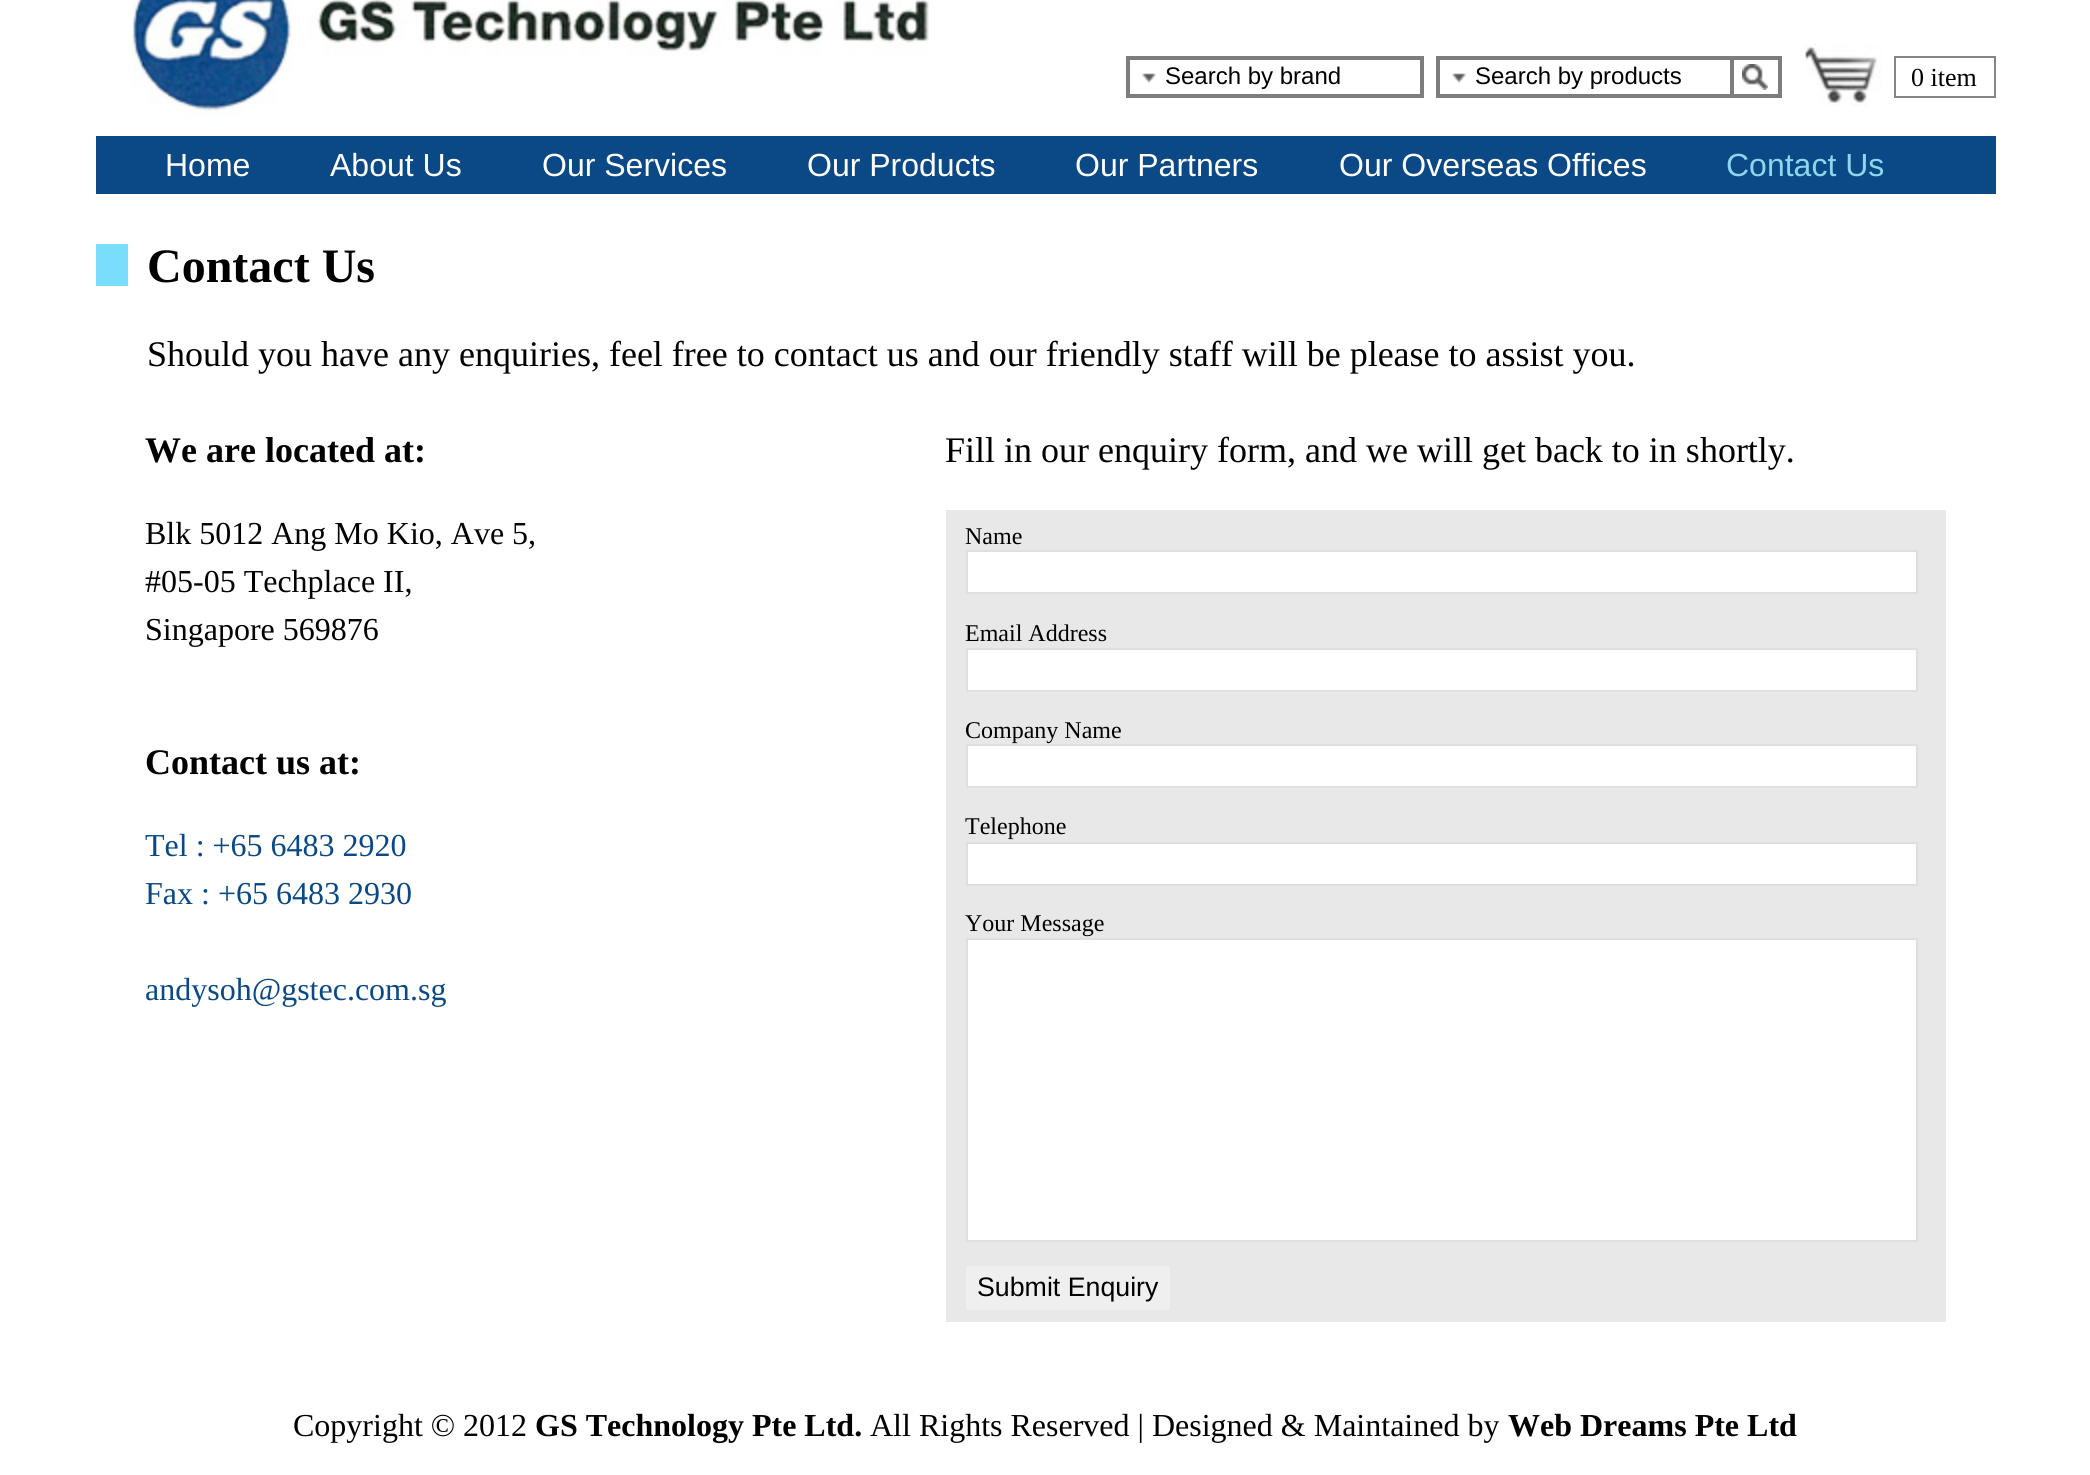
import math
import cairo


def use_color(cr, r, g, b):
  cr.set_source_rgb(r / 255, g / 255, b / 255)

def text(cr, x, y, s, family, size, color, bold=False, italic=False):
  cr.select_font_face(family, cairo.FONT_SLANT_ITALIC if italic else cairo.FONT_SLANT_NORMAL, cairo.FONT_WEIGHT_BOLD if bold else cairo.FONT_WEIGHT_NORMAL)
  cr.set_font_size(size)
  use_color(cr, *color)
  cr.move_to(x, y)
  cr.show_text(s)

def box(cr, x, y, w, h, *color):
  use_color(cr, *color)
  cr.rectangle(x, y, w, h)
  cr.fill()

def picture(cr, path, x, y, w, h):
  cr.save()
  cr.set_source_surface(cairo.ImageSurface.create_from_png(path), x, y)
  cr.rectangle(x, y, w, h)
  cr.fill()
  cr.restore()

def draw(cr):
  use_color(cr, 255, 255, 255)
  cr.paint()
  picture(cr, "img_01.png", 132, 0, 797, 116)
  picture(cr, "img_02.png", 1142, 73, 14, 10)
  cr.rectangle(1128, 58, 294, 38)
  use_color(cr, 125, 125, 125)
  cr.set_line_width(4)
  cr.stroke()
  picture(cr, "img_02.png", 1452, 73, 14, 10)
  cr.rectangle(1438, 58, 294, 38)
  cr.stroke()
  picture(cr, "img_03.png", 1742, 64, 26, 26)
  box(cr, 1734, 56, 48, 4, 125, 125, 125)
  box(cr, 1778, 56, 4, 42, 125, 125, 125)
  box(cr, 1734, 94, 48, 4, 125, 125, 125)
  picture(cr, "img_04.png", 1805, 44, 77, 62)
  cr.rectangle(1895, 57, 100, 40)
  use_color(cr, 133, 133, 132)
  cr.set_line_width(2)
  cr.stroke()
  box(cr, 96, 136, 1900, 58, 10, 73, 134)
  box(cr, 96, 244, 32, 42, 122, 221, 252)
  box(cr, 946, 510, 1000, 812, 232, 232, 232)
  use_color(cr, 255, 255, 255)
  cr.rectangle(967, 551, 950, 42)
  cr.fill_preserve()
  use_color(cr, 223, 223, 223)
  cr.stroke()
  use_color(cr, 255, 255, 255)
  cr.rectangle(967, 649, 950, 42)
  cr.fill_preserve()
  use_color(cr, 223, 223, 223)
  cr.stroke()
  use_color(cr, 255, 255, 255)
  cr.rectangle(967, 745, 950, 42)
  cr.fill_preserve()
  use_color(cr, 223, 223, 223)
  cr.stroke()
  use_color(cr, 255, 255, 255)
  cr.rectangle(967, 843, 950, 42)
  cr.fill_preserve()
  use_color(cr, 223, 223, 223)
  cr.stroke()
  use_color(cr, 255, 255, 255)
  cr.rectangle(967, 939, 950, 302)
  cr.fill_preserve()
  use_color(cr, 223, 223, 223)
  cr.stroke()
  box(cr, 966, 1266, 204, 44, 239, 239, 239)
  text(cr, 1165, 84, "Search by brand", "Liberation Sans", 24, (0, 0, 0))
  text(cr, 1475, 84, "Search by products", "Liberation Sans", 24, (0, 0, 0))
  text(cr, 1911, 86, "0 item", "Liberation Serif", 26, (0, 0, 0))
  text(cr, 165, 176, "Home", "Liberation Sans", 32, (255, 255, 255))
  text(cr, 330, 176, "About Us", "Liberation Sans", 32, (255, 255, 255))
  text(cr, 542, 176, "Our Services", "Liberation Sans", 32, (255, 255, 255))
  text(cr, 807, 176, "Our Products", "Liberation Sans", 32, (255, 255, 255))
  text(cr, 1075, 176, "Our Partners", "Liberation Sans", 32, (255, 255, 255))
  text(cr, 1339, 176, "Our Overseas Offices", "Liberation Sans", 32, (255, 255, 255))
  text(cr, 1726, 176, "Contact Us", "Liberation Sans", 32, (142, 213, 238))
  text(cr, 147, 282, "Contact Us", "Liberation Serif", 48, (0, 0, 0), bold=True)
  text(cr, 147, 366, "Should you have any enquiries, feel free to contact us and our friendly staff will be please to assist you.", "Liberation Serif", 36, (0, 0, 0))
  text(cr, 145, 462, "We are located at:", "Liberation Serif", 36, (0, 0, 0), bold=True)
  text(cr, 145, 544, "Blk 5012 Ang Mo Kio, Ave 5,", "Liberation Serif", 32, (0, 0, 0))
  text(cr, 145, 592, "#05-05 Techplace II,", "Liberation Serif", 32, (0, 0, 0))
  text(cr, 145, 640, "Singapore 569876", "Liberation Serif", 32, (0, 0, 0))
  text(cr, 145, 774, "Contact us at:", "Liberation Serif", 36, (0, 0, 0), bold=True)
  text(cr, 145, 856, "Tel : +65 6483 2920", "Liberation Serif", 32, (10, 73, 134))
  text(cr, 145, 904, "Fax : +65 6483 2930", "Liberation Serif", 32, (10, 73, 134))
  text(cr, 145, 1000, "andysoh@gstec.com.sg", "Liberation Serif", 32, (10, 73, 134))
  text(cr, 945, 462, "Fill in our enquiry form, and we will get back to in shortly.", "Liberation Serif", 36, (0, 0, 0))
  text(cr, 965, 544, "Name", "Liberation Serif", 24, (0, 0, 0))
  text(cr, 965, 641, "Email Address", "Liberation Serif", 24, (0, 0, 0))
  text(cr, 965, 738, "Company Name", "Liberation Serif", 24, (0, 0, 0))
  text(cr, 965, 834, "Telephone", "Liberation Serif", 24, (0, 0, 0))
  text(cr, 965, 931, "Your Message", "Liberation Serif", 24, (0, 0, 0))
  text(cr, 977, 1296, "Submit Enquiry", "Liberation Sans", 26.75, (0, 0, 0))
  text(cr, 293, 1436, "Copyright © 2012", "Liberation Serif", 32, (0, 0, 0))
  text(cr, 535, 1436, "GS Technology Pte Ltd.", "Liberation Serif", 32, (0, 0, 0), bold=True)
  text(cr, 870, 1436, "All Rights Reserved | Designed & Maintained by", "Liberation Serif", 32, (0, 0, 0))
  text(cr, 1508, 1436, "Web Dreams Pte Ltd", "Liberation Serif", 32, (0, 0, 0), bold=True)


surface = cairo.ImageSurface(cairo.FORMAT_RGB24, 2090, 1475)
cr = cairo.Context(surface)
options = cairo.FontOptions()
options.set_hint_metrics(cairo.HINT_METRICS_OFF)
options.set_hint_style(cairo.HINT_STYLE_NONE)
cr.set_font_options(options)
cr.set_miter_limit(4)
draw(cr)
surface.write_to_png("out.png")
